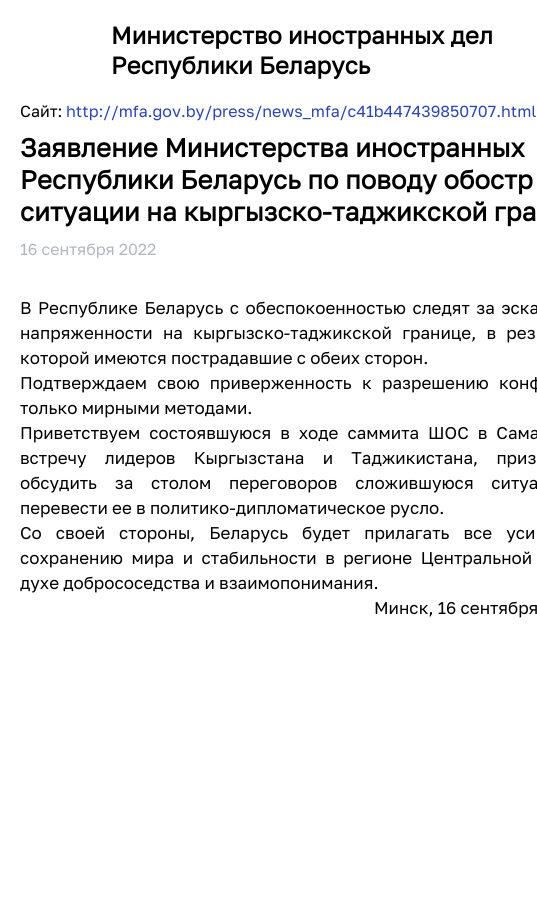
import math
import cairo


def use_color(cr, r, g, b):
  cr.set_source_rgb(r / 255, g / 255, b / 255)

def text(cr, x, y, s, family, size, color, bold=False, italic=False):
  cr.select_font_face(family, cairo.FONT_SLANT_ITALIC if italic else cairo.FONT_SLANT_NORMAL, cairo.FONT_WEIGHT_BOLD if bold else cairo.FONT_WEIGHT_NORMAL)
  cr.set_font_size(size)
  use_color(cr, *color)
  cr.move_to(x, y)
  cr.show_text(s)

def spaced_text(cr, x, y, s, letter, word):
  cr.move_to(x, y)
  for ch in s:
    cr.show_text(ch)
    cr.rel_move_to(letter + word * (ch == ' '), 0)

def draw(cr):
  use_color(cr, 255, 255, 255)
  cr.paint()
  text(cr, 111, 44, "Министерство иностранных дел", "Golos", 24, (0, 0, 0), bold=True)
  text(cr, 111, 74, "Республики Беларусь", "Golos", 24, (0, 0, 0), bold=True)
  text(cr, 20, 117, "Сайт:", "Golos", 16, (0, 0, 0))
  text(cr, 66, 117, "http://mfa.gov.by/press/news_mfa/c41b447439850707.html", "Golos", 16, (43, 68, 181))
  text(cr, 20, 157, "Заявление Министерства иностранных", "Golos", 26, (0, 0, 0), bold=True)
  text(cr, 20, 189, "Республики Беларусь по поводу обостр", "Golos", 26, (0, 0, 0), bold=True)
  text(cr, 20, 221, "ситуации на кыргызско-таджикской гра", "Golos", 26, (0, 0, 0), bold=True)
  text(cr, 20, 255, "16 сентября 2022", "Golos", 16, (175, 183, 192))
  cr.set_font_size(17)
  use_color(cr, 0, 0, 0)
  spaced_text(cr, 20, 314, "В Республике Беларусь с обеспокоенностью следят за эска", 0, 2.25)
  spaced_text(cr, 20, 339, "напряженности на кыргызско-таджикской границе, в рез", 0, 6)
  text(cr, 20, 364, "которой имеются пострадавшие с обеих сторон.", "Golos", 17, (0, 0, 0))
  spaced_text(cr, 20, 389, "Подтверждаем свою приверженность к разрешению конф", 0, 6)
  text(cr, 20, 414, "только мирными методами.", "Golos", 17, (0, 0, 0))
  spaced_text(cr, 20, 439, "Приветствуем состоявшуюся в ходе саммита ШОС в Сама", 0, 4.75)
  spaced_text(cr, 20, 464, "встречу лидеров Кыргызстана и Таджикистана, приз", 0, 14)
  spaced_text(cr, 20, 489, "обсудить за столом переговоров сложившуюся ситуа", 0, 13.5)
  text(cr, 20, 514, "перевести ее в политико-дипломатическое русло.", "Golos", 17, (0, 0, 0))
  spaced_text(cr, 20, 539, "Со своей стороны, Беларусь будет прилагать все уси", 0, 9.75)
  spaced_text(cr, 20, 564, "сохранению мира и стабильности в регионе Центральной", 0, 4.25)
  text(cr, 20, 589, "духе добрососедства и взаимопонимания.", "Golos", 17, (0, 0, 0))
  text(cr, 374, 614, "Минск, 16 сентября", "Golos", 17, (0, 0, 0))


surface = cairo.ImageSurface(cairo.FORMAT_RGB24, 537, 915)
cr = cairo.Context(surface)
options = cairo.FontOptions()
options.set_hint_metrics(cairo.HINT_METRICS_OFF)
options.set_hint_style(cairo.HINT_STYLE_NONE)
cr.set_font_options(options)
cr.set_miter_limit(4)
draw(cr)
surface.write_to_png("out.png")
